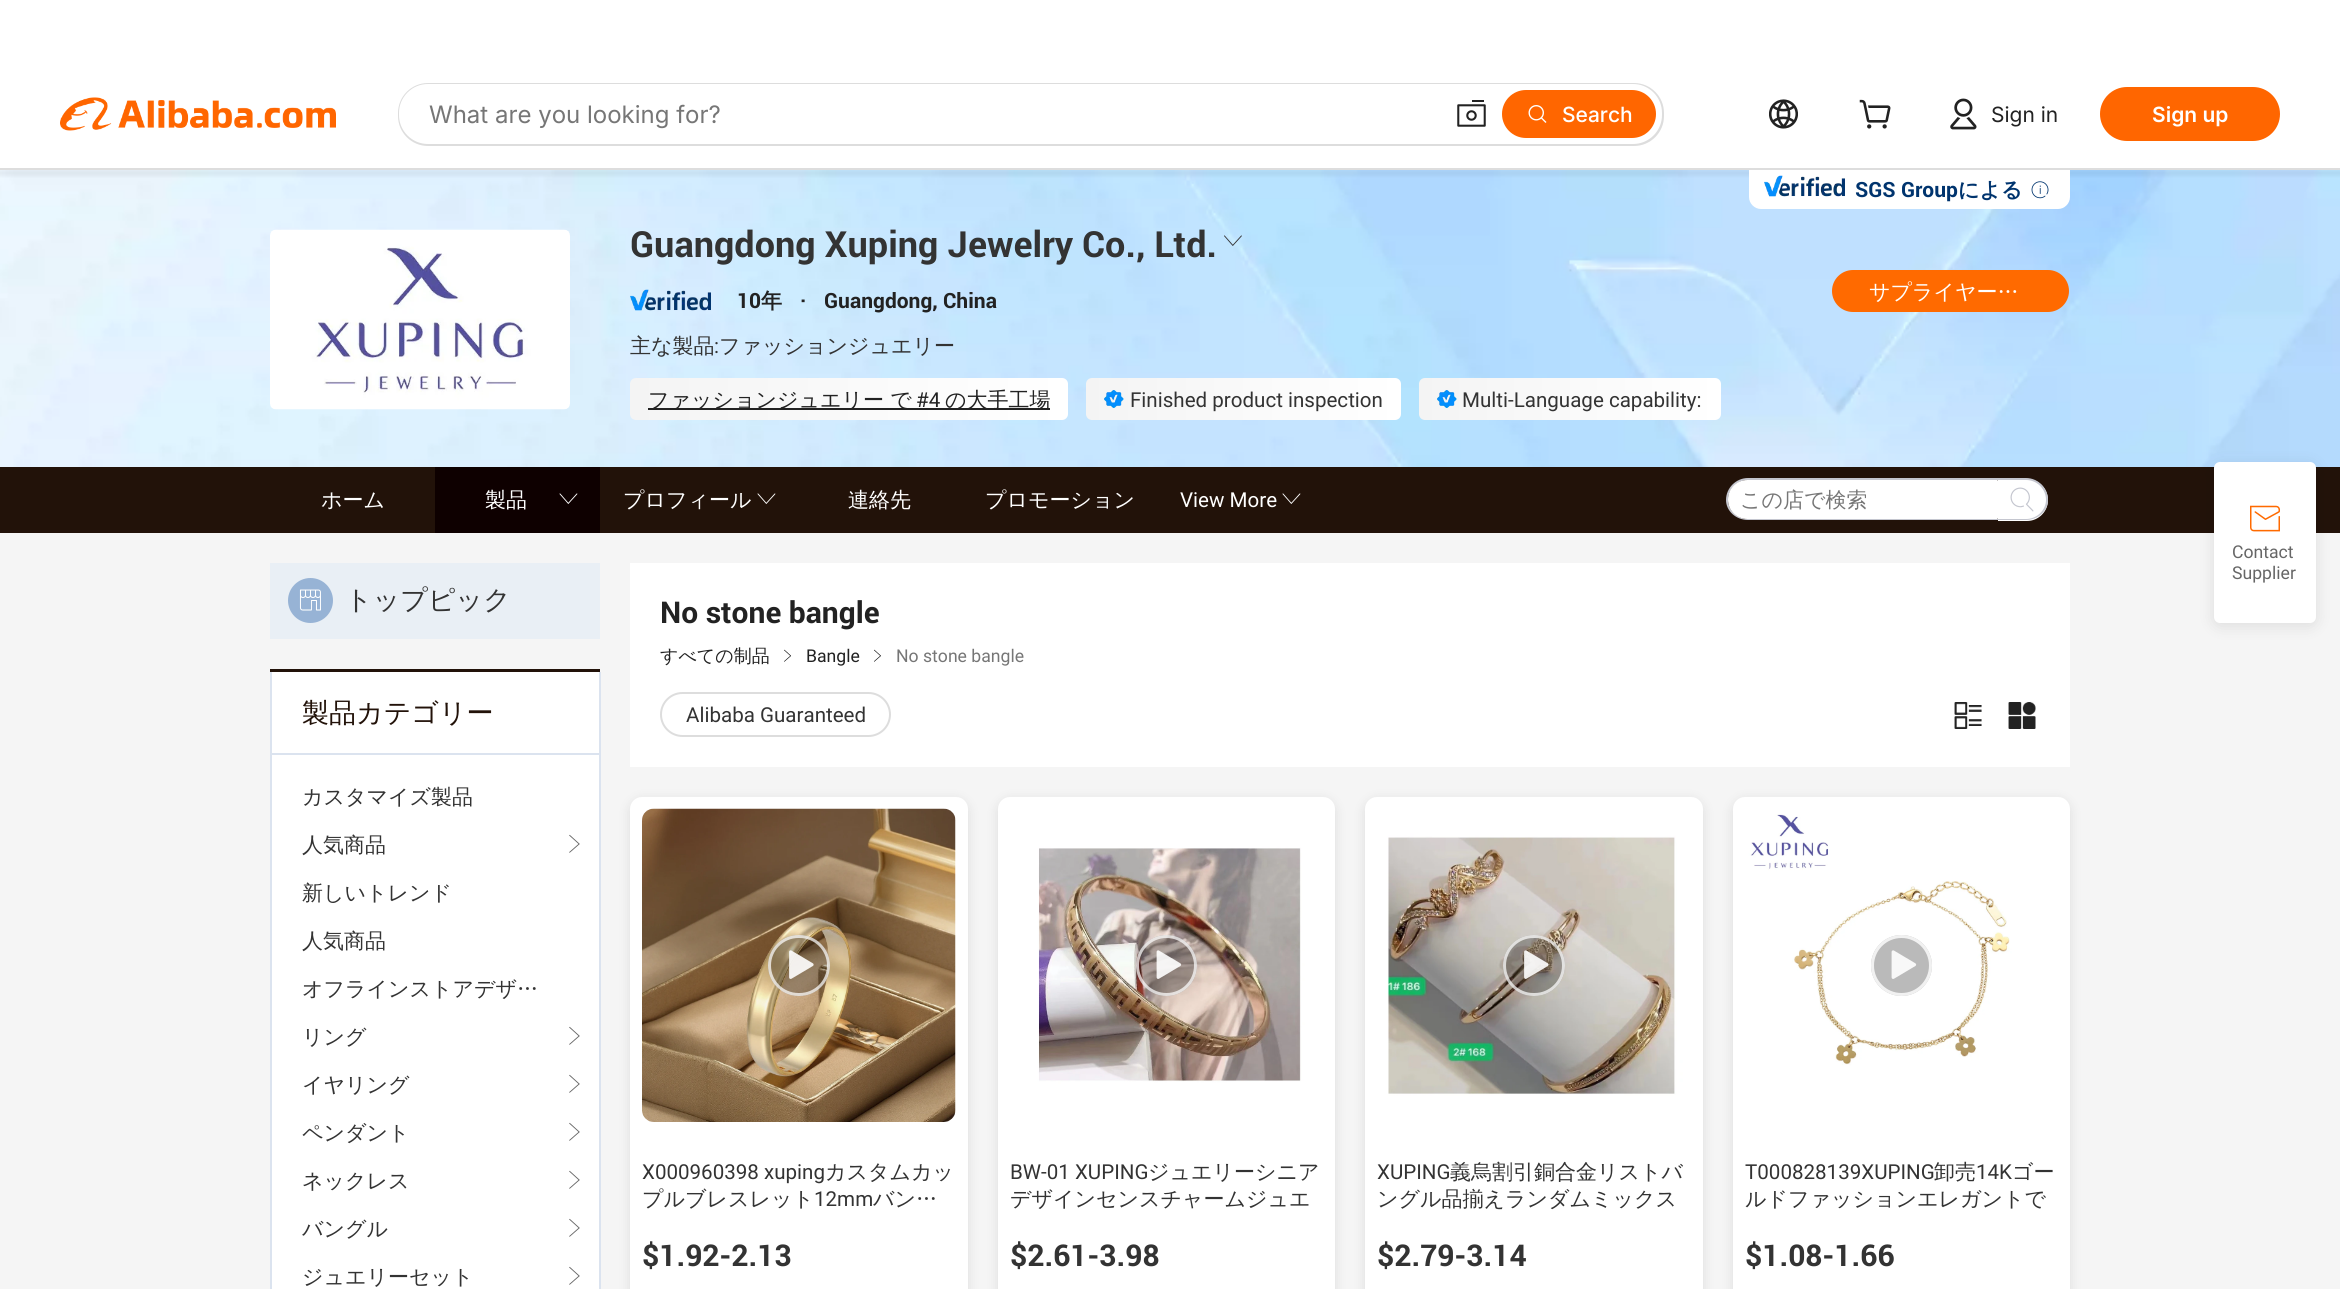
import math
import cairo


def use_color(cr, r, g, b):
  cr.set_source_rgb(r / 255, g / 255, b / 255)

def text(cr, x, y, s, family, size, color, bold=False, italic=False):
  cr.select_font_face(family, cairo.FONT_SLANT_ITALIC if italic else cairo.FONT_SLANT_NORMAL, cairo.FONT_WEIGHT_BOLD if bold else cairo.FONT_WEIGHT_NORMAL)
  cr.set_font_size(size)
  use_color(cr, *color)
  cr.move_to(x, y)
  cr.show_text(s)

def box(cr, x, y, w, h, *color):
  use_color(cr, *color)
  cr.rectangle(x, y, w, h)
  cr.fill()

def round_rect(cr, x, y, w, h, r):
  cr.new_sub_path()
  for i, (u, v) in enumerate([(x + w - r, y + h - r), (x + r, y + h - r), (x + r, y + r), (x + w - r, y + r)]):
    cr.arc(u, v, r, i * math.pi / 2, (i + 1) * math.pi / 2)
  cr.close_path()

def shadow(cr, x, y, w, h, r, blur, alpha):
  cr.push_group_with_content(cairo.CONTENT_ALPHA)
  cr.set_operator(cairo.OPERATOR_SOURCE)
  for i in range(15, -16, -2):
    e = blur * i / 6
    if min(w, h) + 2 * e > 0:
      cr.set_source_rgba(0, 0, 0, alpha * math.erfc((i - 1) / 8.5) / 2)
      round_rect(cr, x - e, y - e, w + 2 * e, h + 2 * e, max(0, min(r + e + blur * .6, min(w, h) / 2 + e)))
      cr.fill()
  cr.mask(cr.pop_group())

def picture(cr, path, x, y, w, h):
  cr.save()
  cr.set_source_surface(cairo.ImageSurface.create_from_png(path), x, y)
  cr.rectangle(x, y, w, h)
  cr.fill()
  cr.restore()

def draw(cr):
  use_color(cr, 255, 255, 255)
  cr.paint()
  picture(cr, "img_07.png", 0, 170, 2340, 297)
  use_color(cr, 0, 0, 0)
  shadow(cr, -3, 170, 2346, 6, 0, 1.5, 0.05)
  box(cr, 0, 168, 2340, 2, 221, 221, 221)
  picture(cr, "img_01.png", 60, 97, 276, 34)
  round_rect(cr, 398, 83, 1266, 63, 30)
  cr.fill()
  use_color(cr, 255, 255, 255)
  round_rect(cr, 399, 84, 1263, 60, 29)
  cr.fill()
  picture(cr, "img_02.png", 1457, 100, 29, 27)
  use_color(cr, 255, 102, 0)
  round_rect(cr, 1502, 90, 154, 48, 24)
  cr.fill()
  picture(cr, "img_03.png", 1528, 105, 19, 18)
  picture(cr, "img_04.png", 1769, 99, 29, 30)
  picture(cr, "img_05.png", 1859, 99, 32, 30)
  picture(cr, "img_06.png", 1950, 98, 27, 32)
  round_rect(cr, 2100, 87, 180, 54, 27)
  cr.fill()
  use_color(cr, 255, 255, 255)
  cr.new_path()
  cr.move_to(1749, 170)
  cr.line_to(2070, 170)
  cr.line_to(2070, 197)
  cr.curve_to(2070, 203.5, 2064.5, 209, 2058, 209)
  cr.line_to(1761, 209)
  cr.curve_to(1754.5, 209, 1749, 203.5, 1749, 197)
  cr.close_path()
  cr.fill()
  picture(cr, "img_08.png", 1764, 175, 81, 22)
  picture(cr, "img_09.png", 2031, 181, 18, 18)
  picture(cr, "img_10.png", 270, 229, 300, 181)
  picture(cr, "img_11.png", 1224, 235, 18, 11)
  picture(cr, "img_12.png", 630, 289, 81, 22)
  gradient = cairo.LinearGradient(1068, 399, 630, 399)
  gradient.add_color_stop_rgba(0, 1, 1, 1, 1)
  gradient.add_color_stop_rgba(1, 0.957, 0.957, 0.957, 1)
  cr.set_source(gradient)
  round_rect(cr, 630, 378, 438, 42, 6)
  cr.fill()
  box(cr, 648, 408, 402, 2, 34, 34, 34)
  gradient = cairo.LinearGradient(1401, 399, 1086, 399)
  gradient.add_color_stop_rgba(0, 1, 1, 1, 1)
  gradient.add_color_stop_rgba(1, 0.957, 0.957, 0.957, 1)
  cr.set_source(gradient)
  round_rect(cr, 1086, 378, 315, 42, 6)
  cr.fill()
  picture(cr, "img_13.png", 1104, 390, 20, 18)
  gradient = cairo.LinearGradient(1721, 399, 1419, 399)
  gradient.add_color_stop_rgba(0, 1, 1, 1, 1)
  gradient.add_color_stop_rgba(1, 0.957, 0.957, 0.957, 1)
  cr.set_source(gradient)
  round_rect(cr, 1419, 378, 302, 42, 6)
  cr.fill()
  picture(cr, "img_13.png", 1437, 390, 20, 18)
  use_color(cr, 255, 106, 0)
  round_rect(cr, 1832, 270, 237, 42, 21)
  cr.fill()
  box(cr, 0, 467, 2340, 66, 34, 18, 9)
  box(cr, 435, 467, 165, 66, 14, 0, 0)
  picture(cr, "img_14.png", 559, 493, 19, 11)
  picture(cr, "img_15.png", 757, 493, 19, 11)
  picture(cr, "img_15.png", 1282, 493, 19, 11)
  use_color(cr, 196, 198, 207)
  cr.set_fill_rule(cairo.FILL_RULE_EVEN_ODD)
  cr.new_path()
  cr.move_to(1748, 478)
  cr.line_to(1998, 478)
  cr.line_to(1998, 520)
  cr.line_to(1748, 520)
  cr.curve_to(1736, 520, 1726, 511, 1726, 500)
  cr.curve_to(1726, 488, 1736, 478, 1748, 478)
  cr.close_path()
  cr.move_to(1748, 480)
  cr.line_to(1998, 480)
  cr.line_to(1998, 519)
  cr.line_to(1748, 519)
  cr.curve_to(1737, 519, 1728, 510, 1728, 500)
  cr.curve_to(1728, 489, 1737, 480, 1748, 480)
  cr.close_path()
  cr.fill()
  use_color(cr, 255, 255, 255)
  cr.new_path()
  cr.move_to(1747.5, 480)
  cr.line_to(1997, 480)
  cr.curve_to(1997.5, 480, 1998, 480.5, 1998, 481)
  cr.line_to(1998, 518)
  cr.curve_to(1998, 518.5, 1997.5, 519, 1997, 519)
  cr.line_to(1747.5, 519)
  cr.curve_to(1736.5, 519, 1728, 510.5, 1728, 499.5)
  cr.curve_to(1728, 488.5, 1736.5, 480, 1747.5, 480)
  cr.close_path()
  cr.fill()
  cr.new_path()
  cr.move_to(1998, 479)
  cr.line_to(2027, 479)
  cr.curve_to(2038.5, 479, 2048, 488.5, 2048, 500)
  cr.curve_to(2048, 511.5, 2038.5, 521, 2027, 521)
  cr.line_to(1998, 521)
  cr.close_path()
  cr.fill()
  use_color(cr, 196, 198, 207)
  cr.new_path()
  cr.move_to(1998, 478)
  cr.line_to(2026, 478)
  cr.curve_to(2038, 478, 2048, 488, 2048, 500)
  cr.curve_to(2048, 511, 2038, 520, 2026, 520)
  cr.line_to(1998, 520)
  cr.close_path()
  cr.move_to(1998, 480)
  cr.line_to(2026, 480)
  cr.curve_to(2037, 480, 2046, 489, 2046, 500)
  cr.curve_to(2046, 510, 2037, 519, 2026, 519)
  cr.line_to(1998, 519)
  cr.close_path()
  cr.fill()
  picture(cr, "img_16.png", 2010, 487, 24, 25)
  box(cr, 0, 533, 2340, 756, 245, 245, 245)
  box(cr, 270, 563, 330, 76, 233, 239, 245)
  use_color(cr, 151, 179, 213)
  cr.arc(310.5, 600.5, 22.5, 0, 2 * math.pi)
  cr.fill()
  picture(cr, "img_17.png", 299, 589, 22, 22)
  box(cr, 272, 672, 327, 617, 255, 255, 255)
  box(cr, 270, 669, 330, 3, 34, 18, 9)
  box(cr, 599, 672, 2, 617, 219, 227, 239)
  box(cr, 270, 672, 2, 617, 219, 227, 239)
  box(cr, 272, 753, 327, 2, 219, 227, 239)
  picture(cr, "img_18.png", 569, 834, 11, 19)
  picture(cr, "img_18.png", 569, 1026, 11, 19)
  picture(cr, "img_18.png", 569, 1074, 11, 19)
  picture(cr, "img_18.png", 569, 1122, 11, 19)
  picture(cr, "img_18.png", 569, 1170, 11, 19)
  picture(cr, "img_18.png", 569, 1218, 11, 19)
  picture(cr, "img_18.png", 569, 1266, 11, 19)
  box(cr, 630, 563, 1440, 204, 255, 255, 255)
  picture(cr, "img_19.png", 784, 649, 7, 13)
  picture(cr, "img_20.png", 874, 649, 7, 13)
  round_rect(cr, 661, 693, 229, 43, 21.5)
  use_color(cr, 221, 221, 221)
  cr.stroke()
  picture(cr, "img_21.png", 1954, 702, 28, 27)
  picture(cr, "img_22.png", 2008, 701, 28, 28)
  use_color(cr, 0, 0, 0)
  shadow(cr, 630, 800, 338, 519, 12, 6, 0.1)
  use_color(cr, 255, 255, 255)
  round_rect(cr, 630, 797, 338, 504, 12)
  cr.fill()
  picture(cr, "img_23.png", 642, 808, 314, 314)
  cr.set_source_rgba(0, 0, 0, 0.27)
  round_rect(cr, 768, 935, 62, 61, 30.5)
  cr.fill()
  round_rect(cr, 769.5, 936.5, 59, 58, 29)
  cr.set_source_rgba(1, 1, 1, 0.72)
  cr.set_line_width(3)
  cr.stroke()
  picture(cr, "img_24.png", 789, 950, 25, 29)
  use_color(cr, 0, 0, 0)
  shadow(cr, 998, 800, 337, 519, 12, 6, 0.1)
  use_color(cr, 255, 255, 255)
  round_rect(cr, 998, 797, 337, 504, 12)
  cr.fill()
  picture(cr, "img_25.png", 1010, 809, 313, 313)
  cr.set_source_rgba(0, 0, 0, 0.27)
  cr.arc(1166.5, 965.5, 30.5, 0, 2 * math.pi)
  cr.fill()
  cr.arc(1166.5, 965.5, 29, 0, 2 * math.pi)
  cr.set_source_rgba(1, 1, 1, 0.72)
  cr.stroke()
  picture(cr, "img_26.png", 1156, 950, 26, 29)
  use_color(cr, 0, 0, 0)
  shadow(cr, 1365, 800, 338, 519, 12, 6, 0.1)
  use_color(cr, 255, 255, 255)
  round_rect(cr, 1365, 797, 338, 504, 12)
  cr.fill()
  picture(cr, "img_27.png", 1377, 809, 313, 313)
  cr.set_source_rgba(0, 0, 0, 0.27)
  round_rect(cr, 1503, 935, 62, 61, 30.5)
  cr.fill()
  round_rect(cr, 1504.5, 936.5, 59, 58, 29)
  cr.set_source_rgba(1, 1, 1, 0.72)
  cr.stroke()
  picture(cr, "img_28.png", 1524, 950, 25, 29)
  use_color(cr, 0, 0, 0)
  shadow(cr, 1733, 800, 337, 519, 12, 6, 0.1)
  use_color(cr, 255, 255, 255)
  round_rect(cr, 1733, 797, 337, 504, 12)
  cr.fill()
  picture(cr, "img_29.png", 1745, 809, 313, 313)
  use_color(cr, 186, 186, 186)
  cr.arc(1901.5, 965.5, 30.5, 0, 2 * math.pi)
  cr.fill()
  cr.arc(1901.5, 965.5, 29, 0, 2 * math.pi)
  cr.set_source_rgba(1, 1, 1, 0.8)
  cr.stroke()
  picture(cr, "img_30.png", 1891, 950, 26, 29)
  use_color(cr, 0, 0, 0)
  shadow(cr, 2214, 465, 102, 161, 6, 7.5, 0.1)
  use_color(cr, 255, 255, 255)
  round_rect(cr, 2214, 462, 102, 161, 6)
  cr.fill()
  picture(cr, "img_31.png", 2250, 505, 30, 27)
  text(cr, 429, 123, "What are you looking for?", "Inter", 24, (118, 118, 118))
  text(cr, 1562, 122, "Search", "Inter Medium", 21, (255, 255, 255))
  text(cr, 1991, 122, "Sign in", "Inter", 21, (34, 34, 34))
  text(cr, 2152, 122, "Sign up", "Inter SemiBold", 21, (255, 255, 255))
  text(cr, 1855, 197, "SGS Group", "Roboto", 21, (0, 52, 110), bold=True)
  text(cr, 1958, 197, "による", "WenQuanYi Zen Hei", 21, (0, 52, 110), bold=True)
  text(cr, 630, 257, "Guangdong Xuping Jewelry Co., Ltd.", "Roboto", 36, (51, 51, 51), bold=True)
  text(cr, 737, 308, "10", "Roboto", 21, (34, 34, 34), bold=True)
  text(cr, 761, 308, "年", "WenQuanYi Zen Hei", 21, (34, 34, 34), bold=True)
  text(cr, 800, 308, "·", "Roboto", 21, (34, 34, 34), bold=True)
  text(cr, 824, 308, "Guangdong, China", "Roboto", 21, (34, 34, 34), bold=True)
  text(cr, 630, 353, "主な製品", "WenQuanYi Zen Hei Medium", 21, (51, 51, 51))
  text(cr, 714, 353, ":", "Roboto", 21, (51, 51, 51))
  text(cr, 719, 353, "ファッションジュエリー", "WenQuanYi Zen Hei Medium", 21, (51, 51, 51))
  text(cr, 648, 407, "ファッションジュエリー で", "WenQuanYi Zen Hei Medium", 21, (34, 34, 34))
  text(cr, 916, 407, "#4", "Roboto", 21, (34, 34, 34))
  text(cr, 945, 407, "の大手工場", "WenQuanYi Zen Hei Medium", 21, (34, 34, 34))
  text(cr, 1130, 407, "Finished product inspection", "Roboto", 21, (51, 51, 51))
  text(cr, 1462, 407, "Multi-Language capability:", "Roboto", 21, (51, 51, 51))
  text(cr, 1869, 299, "サプライヤー…", "WenQuanYi Zen Hei Medium", 21, (255, 255, 255))
  text(cr, 321, 507, "ホーム", "WenQuanYi Zen Hei Medium", 21, (255, 255, 255))
  text(cr, 485, 507, "製品", "WenQuanYi Zen Hei Medium", 21, (255, 255, 255))
  text(cr, 623, 507, "プロフィール", "WenQuanYi Zen Hei Medium", 21, (255, 255, 255))
  text(cr, 848, 507, "連絡先", "WenQuanYi Zen Hei Medium", 21, (255, 255, 255))
  text(cr, 985, 507, "プロモーション", "WenQuanYi Zen Hei Medium", 21, (255, 255, 255))
  text(cr, 1180, 507, "View More", "Roboto", 21, (255, 255, 255))
  text(cr, 1740, 507, "この店で検索", "WenQuanYi Zen Hei Medium", 21, (118, 118, 118))
  text(cr, 345, 609, "トップピック", "WenQuanYi Zen Hei Medium", 27, (51, 51, 51))
  text(cr, 302, 722, "製品カテゴリー", "WenQuanYi Zen Hei Medium", 27, (34, 18, 9))
  text(cr, 302, 804, "カスタマイズ製品", "WenQuanYi Zen Hei Medium", 21, (51, 51, 51))
  text(cr, 302, 852, "人気商品", "WenQuanYi Zen Hei Medium", 21, (51, 51, 51))
  text(cr, 302, 900, "新しいトレンド", "WenQuanYi Zen Hei Medium", 21, (51, 51, 51))
  text(cr, 302, 948, "人気商品", "WenQuanYi Zen Hei Medium", 21, (51, 51, 51))
  text(cr, 302, 996, "オフラインストアデザ…", "WenQuanYi Zen Hei Medium", 21, (51, 51, 51))
  text(cr, 302, 1044, "リング", "WenQuanYi Zen Hei Medium", 21, (51, 51, 51))
  text(cr, 302, 1092, "イヤリング", "WenQuanYi Zen Hei Medium", 21, (51, 51, 51))
  text(cr, 302, 1140, "ペンダント", "WenQuanYi Zen Hei Medium", 21, (51, 51, 51))
  text(cr, 302, 1188, "ネックレス", "WenQuanYi Zen Hei Medium", 21, (51, 51, 51))
  text(cr, 302, 1236, "バングル", "WenQuanYi Zen Hei Medium", 21, (51, 51, 51))
  text(cr, 302, 1284, "ジュエリーセット", "WenQuanYi Zen Hei Medium", 21, (51, 51, 51))
  text(cr, 660, 623, "No stone bangle", "Roboto", 30, (34, 34, 34), bold=True)
  text(cr, 660, 662, "すべての制品", "WenQuanYi Zen Hei Medium", 18, (34, 34, 34))
  text(cr, 806, 662, "Bangle", "Roboto", 18, (34, 34, 34))
  text(cr, 896, 662, "No stone bangle", "Roboto", 18, (118, 118, 118))
  text(cr, 686, 722, "Alibaba Guaranteed", "Roboto", 21, (51, 51, 51))
  text(cr, 642, 1179, "X000960398 xuping", "Roboto", 21, (51, 51, 51))
  text(cr, 825, 1179, "カスタムカッ", "WenQuanYi Zen Hei Medium", 21, (51, 51, 51))
  text(cr, 642, 1206, "プルブレスレット", "WenQuanYi Zen Hei Medium", 21, (51, 51, 51))
  text(cr, 814, 1206, "12mm", "Roboto", 21, (51, 51, 51))
  text(cr, 873, 1206, "バン…", "WenQuanYi Zen Hei Medium", 21, (51, 51, 51))
  text(cr, 642, 1266, "$1.92-2.13", "Roboto", 30, (51, 51, 51), bold=True)
  text(cr, 1010, 1179, "BW-01 XUPING", "Roboto", 21, (51, 51, 51))
  text(cr, 1148, 1179, "ジュエリーシニア", "WenQuanYi Zen Hei Medium", 21, (51, 51, 51))
  text(cr, 1010, 1206, "デザインセンスチャームジュエ", "WenQuanYi Zen Hei Medium", 21, (51, 51, 51))
  text(cr, 1010, 1266, "$2.61-3.98", "Roboto", 30, (51, 51, 51), bold=True)
  text(cr, 1377, 1179, "XUPING", "Roboto", 21, (51, 51, 51))
  text(cr, 1450, 1179, "義烏割引銅合金リストバ", "WenQuanYi Zen Hei Medium", 21, (51, 51, 51))
  text(cr, 1377, 1206, "ングル品揃えランダムミックス", "WenQuanYi Zen Hei Medium", 21, (51, 51, 51))
  text(cr, 1377, 1266, "$2.79-3.14", "Roboto", 30, (51, 51, 51), bold=True)
  text(cr, 1745, 1179, "T000828139XUPING", "Roboto", 21, (51, 51, 51))
  text(cr, 1934, 1179, "卸売", "WenQuanYi Zen Hei Medium", 21, (51, 51, 51))
  text(cr, 1976, 1179, "14K", "Roboto", 21, (51, 51, 51))
  text(cr, 2012, 1179, "ゴー", "WenQuanYi Zen Hei Medium", 21, (51, 51, 51))
  text(cr, 1745, 1206, "ルドファッションエレガントで", "WenQuanYi Zen Hei Medium", 21, (51, 51, 51))
  text(cr, 1745, 1266, "$1.08-1.66", "Roboto", 30, (51, 51, 51), bold=True)
  text(cr, 2232, 558, "Contact", "Roboto", 18, (102, 102, 102))
  text(cr, 2232, 579, "Supplier", "Roboto", 18, (102, 102, 102))


surface = cairo.ImageSurface(cairo.FORMAT_RGB24, 2340, 1289)
cr = cairo.Context(surface)
options = cairo.FontOptions()
options.set_hint_metrics(cairo.HINT_METRICS_OFF)
options.set_hint_style(cairo.HINT_STYLE_NONE)
cr.set_font_options(options)
cr.set_miter_limit(4)
draw(cr)
surface.write_to_png("out.png")
